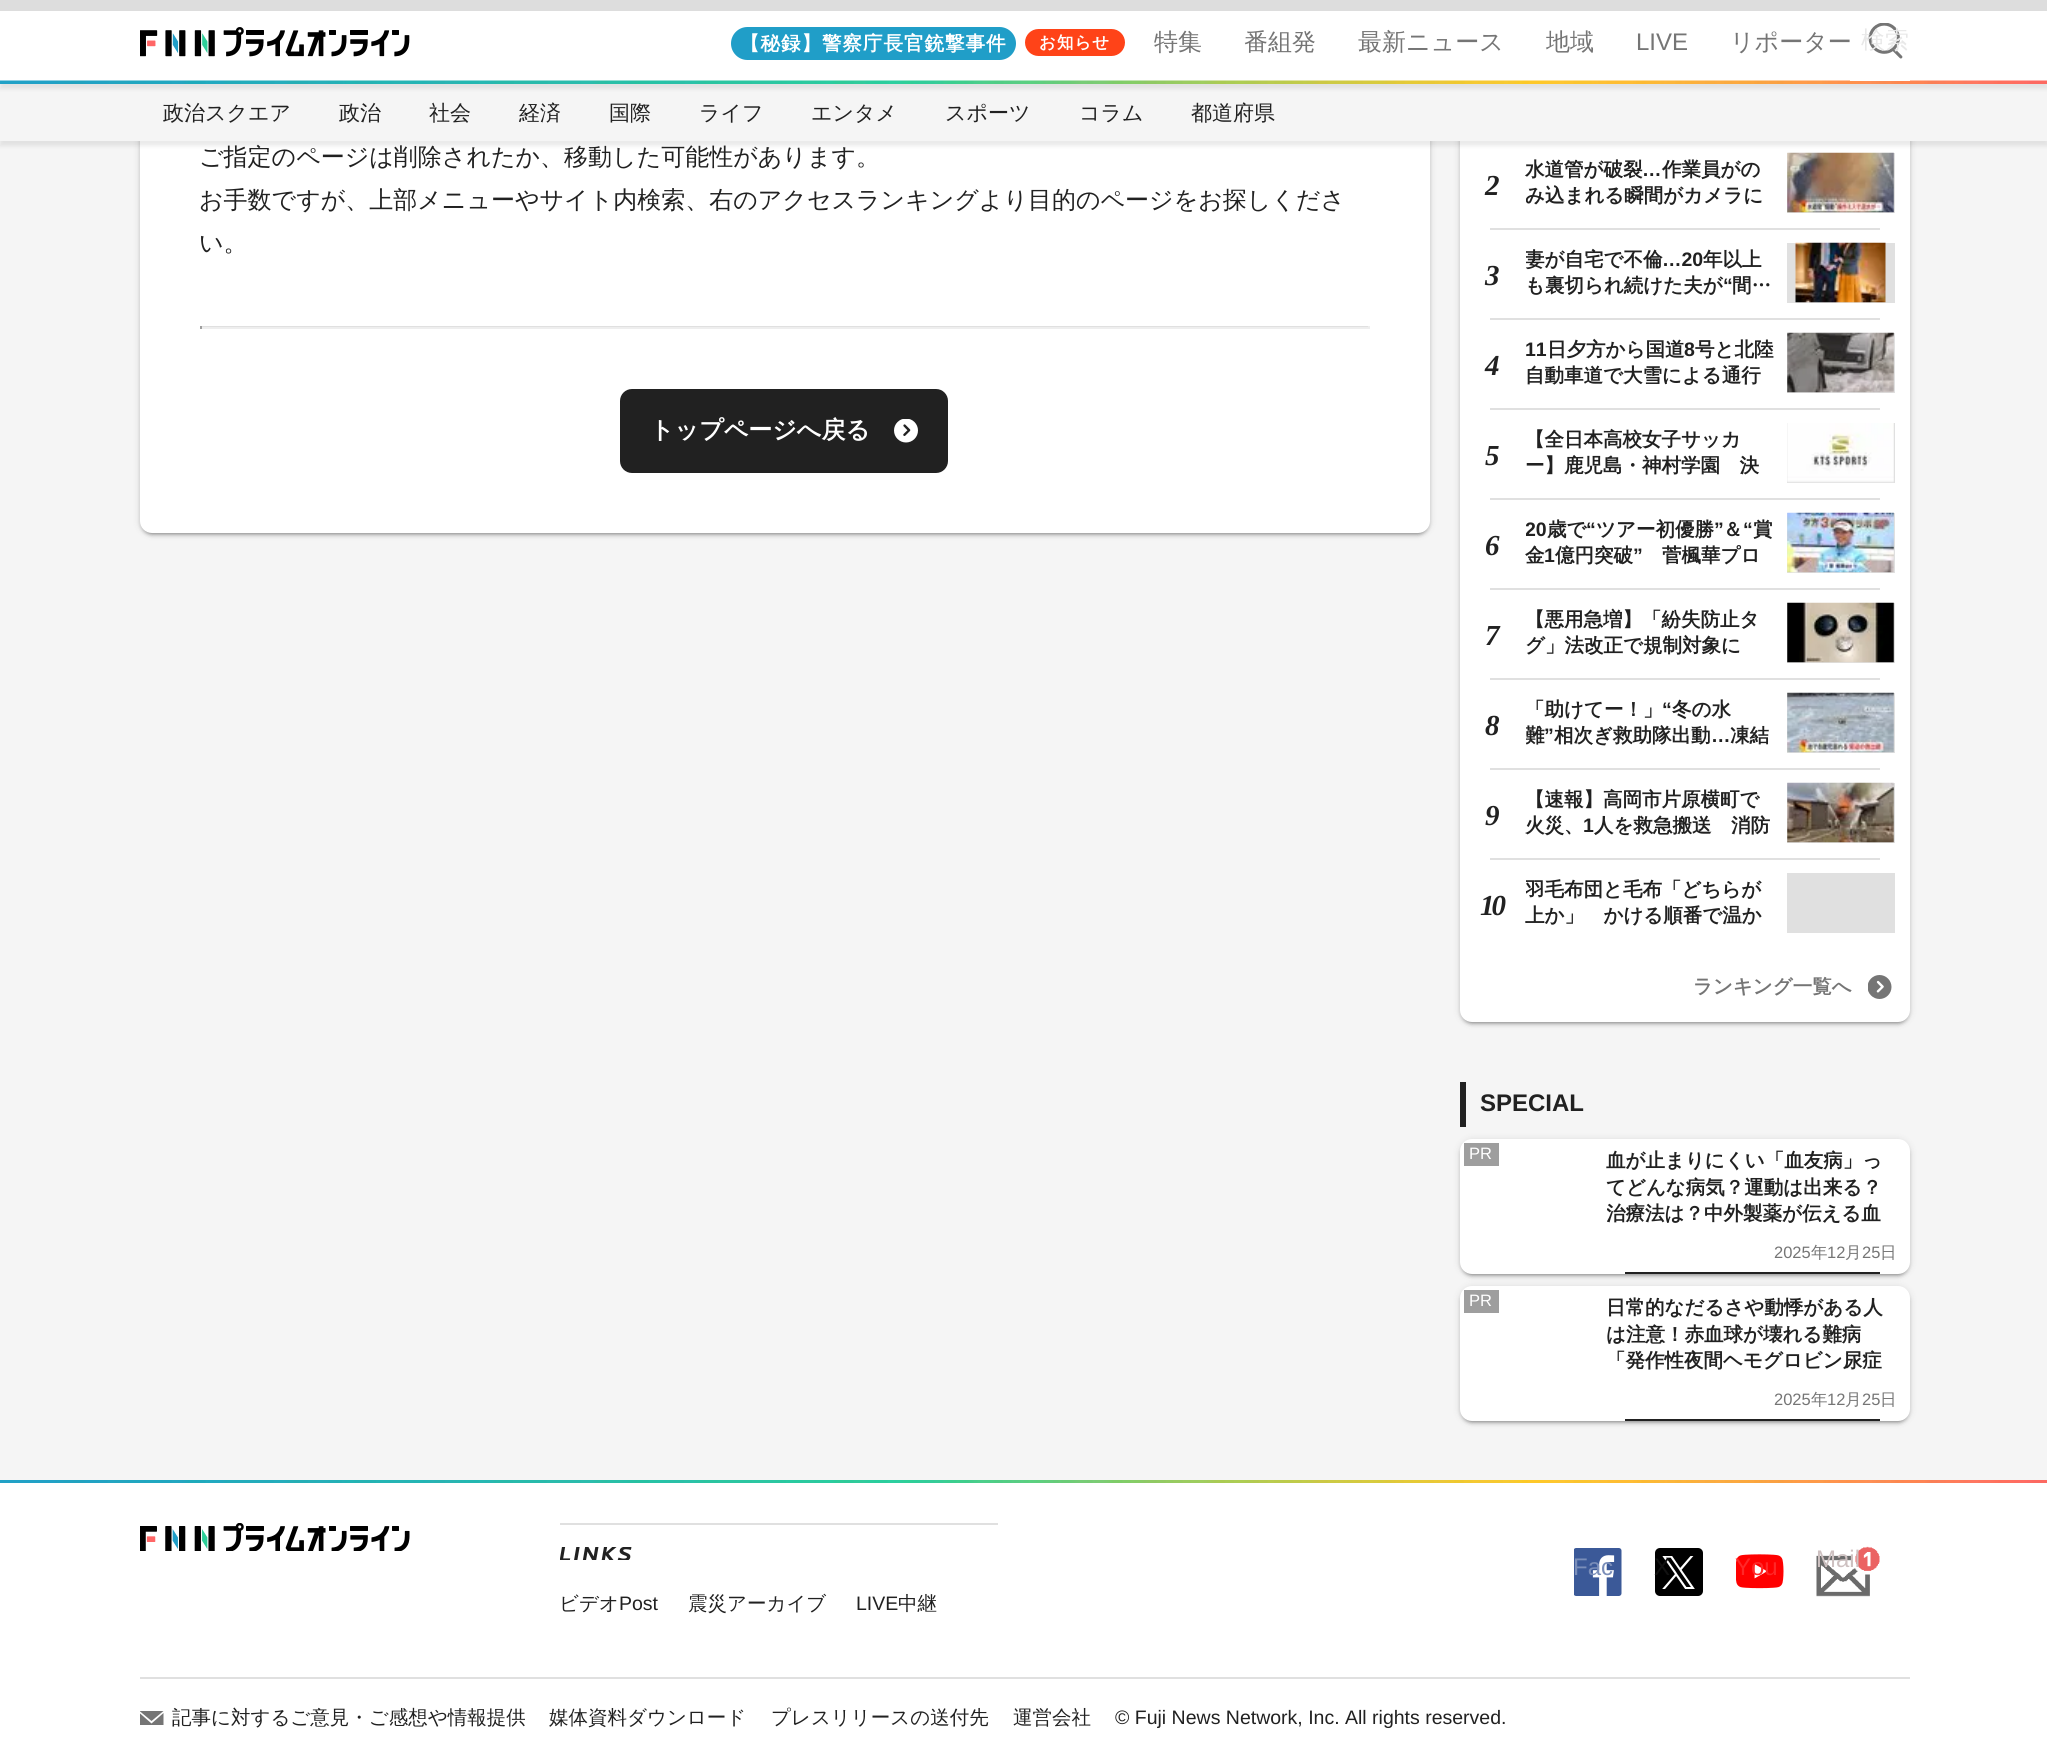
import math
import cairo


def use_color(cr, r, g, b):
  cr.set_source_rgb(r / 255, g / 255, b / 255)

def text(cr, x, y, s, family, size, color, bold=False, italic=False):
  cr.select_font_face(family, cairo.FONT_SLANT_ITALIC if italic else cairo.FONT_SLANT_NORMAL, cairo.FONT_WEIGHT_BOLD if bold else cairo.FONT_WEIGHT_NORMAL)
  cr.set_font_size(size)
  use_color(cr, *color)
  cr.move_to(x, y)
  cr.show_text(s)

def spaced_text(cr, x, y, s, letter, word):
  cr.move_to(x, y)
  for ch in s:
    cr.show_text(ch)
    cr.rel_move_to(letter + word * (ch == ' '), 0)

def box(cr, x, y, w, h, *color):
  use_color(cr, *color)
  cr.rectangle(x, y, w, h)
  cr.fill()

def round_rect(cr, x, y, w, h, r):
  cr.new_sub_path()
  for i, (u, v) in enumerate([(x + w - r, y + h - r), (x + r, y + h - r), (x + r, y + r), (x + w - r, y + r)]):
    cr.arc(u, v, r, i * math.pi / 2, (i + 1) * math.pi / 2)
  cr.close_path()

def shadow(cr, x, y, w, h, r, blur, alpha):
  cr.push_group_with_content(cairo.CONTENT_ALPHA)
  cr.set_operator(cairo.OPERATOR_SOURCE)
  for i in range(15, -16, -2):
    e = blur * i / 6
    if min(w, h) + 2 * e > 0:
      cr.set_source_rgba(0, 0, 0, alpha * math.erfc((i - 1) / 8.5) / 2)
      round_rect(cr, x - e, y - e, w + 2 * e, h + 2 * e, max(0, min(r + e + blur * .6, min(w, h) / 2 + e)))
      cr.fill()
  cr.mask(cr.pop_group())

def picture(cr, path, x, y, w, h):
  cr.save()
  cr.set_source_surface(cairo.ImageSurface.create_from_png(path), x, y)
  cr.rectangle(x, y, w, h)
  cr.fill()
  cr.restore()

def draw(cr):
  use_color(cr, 245, 245, 245)
  cr.paint()
  use_color(cr, 0, 0, 0)
  shadow(cr, 140, -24, 1290, 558, 12, 4, 0.12)
  shadow(cr, 140, -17, 1290, 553, 12, 1.5, 0.14)
  shadow(cr, 143, -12, 1284, 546, 9, 1, 0.2)
  use_color(cr, 255, 255, 255)
  round_rect(cr, 140, -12, 1290, 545, 12)
  cr.fill()
  use_color(cr, 0, 0, 0)
  shadow(cr, 1460, -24, 450, 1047, 12, 4, 0.12)
  shadow(cr, 1460, -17, 450, 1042, 12, 1.5, 0.14)
  shadow(cr, 1463, -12, 444, 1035, 9, 1, 0.2)
  use_color(cr, 255, 255, 255)
  round_rect(cr, 1460, -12, 450, 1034, 12)
  cr.fill()
  box(cr, 1787, 153, 108, 60, 224, 224, 224)
  picture(cr, "img_05.png", 1787, 152, 107, 61)
  use_color(cr, 0, 0, 0)
  shadow(cr, 0, 89, 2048, 57, 0, 2, 0.08)
  box(cr, 0, 84, 2047, 57, 245, 245, 245)
  use_color(cr, 0, 0, 0)
  shadow(cr, 0, 5, 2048, 84, 0, 2, 0.08)
  box(cr, 0, 0, 2047, 11, 221, 221, 221)
  box(cr, 0, 11, 2047, 70, 255, 255, 255)
  picture(cr, "img_01.png", 0, 80, 2047, 4)
  picture(cr, "img_02.png", 140, 27, 270, 30)
  use_color(cr, 32, 158, 200)
  round_rect(cr, 731, 27, 285, 33, 16.5)
  cr.fill()
  use_color(cr, 255, 67, 24)
  round_rect(cr, 1025, 29, 100, 27, 13.5)
  cr.fill()
  box(cr, 1850, 80, 60, 1, 255, 255, 255)
  picture(cr, "img_03.png", 1868, 23, 35, 36)
  box(cr, 200, 326, 1170, 1, 224, 224, 224)
  box(cr, 1368, 326, 2, 3, 238, 238, 238)
  box(cr, 200, 327, 1170, 2, 238, 238, 238)
  box(cr, 200, 326, 2, 3, 159, 159, 159)
  use_color(cr, 33, 33, 33)
  round_rect(cr, 620, 389, 328, 84, 12)
  cr.fill()
  picture(cr, "img_04.png", 894, 419, 24, 24)
  box(cr, 1490, 228, 390, 2, 224, 224, 224)
  box(cr, 1787, 243, 108, 60, 224, 224, 224)
  picture(cr, "img_06.png", 1795, 242, 91, 61)
  box(cr, 1490, 318, 390, 2, 224, 224, 224)
  box(cr, 1787, 333, 108, 60, 224, 224, 224)
  picture(cr, "img_07.png", 1787, 332, 107, 61)
  box(cr, 1490, 408, 390, 2, 224, 224, 224)
  box(cr, 1787, 423, 108, 60, 224, 224, 224)
  picture(cr, "img_08.png", 1787, 423, 107, 60)
  box(cr, 1490, 498, 390, 2, 224, 224, 224)
  box(cr, 1787, 513, 108, 60, 224, 224, 224)
  picture(cr, "img_09.png", 1787, 512, 107, 61)
  box(cr, 1490, 588, 390, 2, 224, 224, 224)
  box(cr, 1787, 603, 108, 60, 224, 224, 224)
  picture(cr, "img_10.png", 1787, 602, 107, 61)
  box(cr, 1490, 678, 390, 2, 224, 224, 224)
  box(cr, 1787, 693, 108, 60, 224, 224, 224)
  picture(cr, "img_11.png", 1787, 692, 107, 61)
  box(cr, 1490, 768, 390, 2, 224, 224, 224)
  box(cr, 1787, 783, 108, 60, 224, 224, 224)
  picture(cr, "img_12.png", 1787, 782, 107, 61)
  box(cr, 1490, 858, 390, 2, 224, 224, 224)
  box(cr, 1787, 873, 108, 60, 224, 224, 224)
  picture(cr, "img_13.png", 1868, 975, 24, 24)
  box(cr, 1460, 1082, 6, 45, 33, 33, 33)
  use_color(cr, 0, 0, 0)
  shadow(cr, 1460, 1140, 450, 135, 12, 4, 0.12)
  shadow(cr, 1460, 1142, 450, 135, 12, 1.5, 0.14)
  shadow(cr, 1463, 1146, 444, 129, 9, 1, 0.2)
  use_color(cr, 255, 255, 255)
  round_rect(cr, 1460, 1139, 450, 135, 12)
  cr.fill()
  box(cr, 1464, 1143, 35, 23, 158, 158, 158)
  box(cr, 1625, 1272, 255, 2, 33, 33, 33)
  use_color(cr, 0, 0, 0)
  shadow(cr, 1460, 1287, 450, 135, 12, 4, 0.12)
  shadow(cr, 1460, 1289, 450, 135, 12, 1.5, 0.14)
  shadow(cr, 1463, 1293, 444, 129, 9, 1, 0.2)
  use_color(cr, 255, 255, 255)
  round_rect(cr, 1460, 1286, 450, 135, 12)
  cr.fill()
  box(cr, 1464, 1290, 35, 23, 158, 158, 158)
  box(cr, 1625, 1419, 255, 2, 33, 33, 33)
  box(cr, 0, 1483, 2047, 254, 255, 255, 255)
  picture(cr, "img_14.png", 0, 1480, 2047, 3)
  picture(cr, "img_15.png", 140, 1523, 270, 28)
  picture(cr, "img_16.png", 1574, 1548, 48, 48)
  use_color(cr, 0, 0, 0)
  round_rect(cr, 1655, 1548, 48, 48, 5)
  cr.fill()
  picture(cr, "img_17.png", 1662, 1556, 33, 33)
  picture(cr, "img_18.png", 1736, 1554, 48, 35)
  picture(cr, "img_19.png", 1816, 1546, 64, 51)
  box(cr, 560, 1523, 438, 2, 224, 224, 224)
  picture(cr, "img_20.png", 560, 1547, 72, 13)
  box(cr, 140, 1677, 1770, 2, 224, 224, 224)
  cr.save()
  cr.rectangle(140, 1707, 24, 18)
  cr.clip()
  use_color(cr, 117, 117, 117)
  cr.new_path()
  cr.move_to(139.5, 1711)
  cr.line_to(151.5, 1721)
  cr.line_to(163.5, 1711)
  cr.close_path()
  cr.move_to(151.5, 1723.5)
  cr.line_to(139.5, 1713)
  cr.line_to(139.5, 1727)
  cr.line_to(163.5, 1727)
  cr.line_to(163.5, 1713)
  cr.close_path()
  cr.fill()
  cr.restore()
  cr.select_font_face("WenQuanYi Zen Hei", cairo.FONT_SLANT_NORMAL, cairo.FONT_WEIGHT_BOLD)
  cr.set_font_size(19.5)
  use_color(cr, 255, 255, 255)
  spaced_text(cr, 740, 50, "【秘録】警察庁長官銃撃事件", 1, 0)
  cr.set_font_size(16.5)
  spaced_text(cr, 1039, 48, "お知らせ", 1, 0)
  text(cr, 1154, 50, "特集", "WenQuanYi Zen Hei Medium", 24, (117, 117, 117))
  text(cr, 1244, 50, "番組発", "WenQuanYi Zen Hei Medium", 24, (117, 117, 117))
  text(cr, 1358, 50, "最新ニュース", "WenQuanYi Zen Hei Medium", 24, (117, 117, 117))
  text(cr, 1546, 50, "地域", "WenQuanYi Zen Hei Medium", 24, (117, 117, 117))
  text(cr, 1636, 50, "LIVE", "Liberation Sans", 24, (117, 117, 117))
  text(cr, 1730, 50, "リポーター", "WenQuanYi Zen Hei Medium", 24, (117, 117, 117))
  text(cr, 1861, 48, "検索", "WenQuanYi Zen Hei Medium", 24, (232, 232, 232))
  text(cr, 163, 120, "政治スクエア", "WenQuanYi Zen Hei Medium", 21, (33, 33, 33))
  text(cr, 339, 120, "政治", "WenQuanYi Zen Hei Medium", 21, (33, 33, 33))
  text(cr, 429, 120, "社会", "WenQuanYi Zen Hei Medium", 21, (33, 33, 33))
  text(cr, 519, 120, "経済", "WenQuanYi Zen Hei Medium", 21, (33, 33, 33))
  text(cr, 609, 120, "国際", "WenQuanYi Zen Hei Medium", 21, (33, 33, 33))
  text(cr, 699, 120, "ライフ", "WenQuanYi Zen Hei Medium", 21, (33, 33, 33))
  text(cr, 811, 120, "エンタメ", "WenQuanYi Zen Hei Medium", 21, (33, 33, 33))
  text(cr, 945, 120, "スポーツ", "WenQuanYi Zen Hei Medium", 21, (33, 33, 33))
  text(cr, 1079, 120, "コラム", "WenQuanYi Zen Hei Medium", 21, (33, 33, 33))
  text(cr, 1191, 120, "都道府県", "WenQuanYi Zen Hei Medium", 21, (33, 33, 33))
  text(cr, 199, 165, "ご指定のページは削除されたか、移動した可能性があります。", "WenQuanYi Zen Hei Medium", 24, (33, 33, 33))
  text(cr, 199, 208, "お手数ですが、上部メニューやサイト内検索、右のアクセスランキングより目的のページをお探しくださ", "WenQuanYi Zen Hei Medium", 24, (33, 33, 33))
  text(cr, 199, 251, "い。", "WenQuanYi Zen Hei Medium", 24, (33, 33, 33))
  text(cr, 650, 438, "トップページへ戻る", "WenQuanYi Zen Hei", 24, (255, 255, 255), bold=True)
  text(cr, 1485, 195, "2", "Liberation Serif", 29, (33, 33, 33), bold=True, italic=True)
  text(cr, 1525, 176, "水道管が破裂", "WenQuanYi Zen Hei", 19.5, (33, 33, 33), bold=True)
  text(cr, 1642, 176, "…", "Liberation Sans", 19.5, (33, 33, 33), bold=True)
  text(cr, 1662, 176, "作業員がの", "WenQuanYi Zen Hei", 19.5, (33, 33, 33), bold=True)
  cr.save()
  cr.rectangle(1526, 156, 249, 54)
  cr.clip()
  text(cr, 1525, 202, "み込まれる瞬間がカメラに", "WenQuanYi Zen Hei", 19.5, (33, 33, 33), bold=True)
  cr.restore()
  text(cr, 1485, 285, "3", "Liberation Serif", 29, (33, 33, 33), bold=True, italic=True)
  cr.save()
  cr.rectangle(1526, 246, 249, 54)
  cr.clip()
  text(cr, 1525, 266, "妻が自宅で不倫", "WenQuanYi Zen Hei", 19.5, (33, 33, 33), bold=True)
  cr.restore()
  text(cr, 1662, 266, "…20", "Liberation Sans", 19.5, (33, 33, 33), bold=True)
  text(cr, 1703, 266, "年以上", "WenQuanYi Zen Hei", 19.5, (33, 33, 33), bold=True)
  text(cr, 1525, 292, "も裏切られ続けた夫が", "WenQuanYi Zen Hei", 19.5, (33, 33, 33), bold=True)
  text(cr, 1723, 292, "“", "Liberation Sans", 19.5, (33, 33, 33), bold=True)
  text(cr, 1732, 292, "間…", "WenQuanYi Zen Hei", 19.5, (33, 33, 33), bold=True)
  text(cr, 1485, 375, "4", "Liberation Serif", 29, (33, 33, 33), bold=True, italic=True)
  text(cr, 1525, 356, "11", "Liberation Sans", 19.5, (33, 33, 33), bold=True)
  text(cr, 1547, 356, "日夕方から国道", "WenQuanYi Zen Hei", 19.5, (33, 33, 33), bold=True)
  text(cr, 1684, 356, "8", "Liberation Sans", 19.5, (33, 33, 33), bold=True)
  text(cr, 1695, 356, "号と北陸", "WenQuanYi Zen Hei", 19.5, (33, 33, 33), bold=True)
  text(cr, 1525, 382, "自動車道で大雪による通行", "WenQuanYi Zen Hei", 19.5, (33, 33, 33), bold=True)
  text(cr, 1485, 465, "5", "Liberation Serif", 29, (33, 33, 33), bold=True, italic=True)
  text(cr, 1525, 446, "【全日本高校女子サッカ", "WenQuanYi Zen Hei", 19.5, (33, 33, 33), bold=True)
  text(cr, 1525, 472, "ー】鹿児島・神村学園　決", "WenQuanYi Zen Hei", 19.5, (33, 33, 33), bold=True)
  text(cr, 1485, 555, "6", "Liberation Serif", 29, (33, 33, 33), bold=True, italic=True)
  cr.save()
  cr.rectangle(1526, 516, 249, 54)
  cr.clip()
  text(cr, 1525, 536, "20", "Liberation Sans", 19.5, (33, 33, 33), bold=True)
  cr.restore()
  text(cr, 1547, 536, "歳で", "WenQuanYi Zen Hei", 19.5, (33, 33, 33), bold=True)
  text(cr, 1586, 536, "“", "Liberation Sans", 19.5, (33, 33, 33), bold=True)
  text(cr, 1596, 536, "ツアー初優勝", "WenQuanYi Zen Hei", 19.5, (33, 33, 33), bold=True)
  text(cr, 1714, 536, "”", "Liberation Sans", 19.5, (33, 33, 33), bold=True)
  text(cr, 1723, 536, "＆", "WenQuanYi Zen Hei", 19.5, (33, 33, 33), bold=True)
  text(cr, 1743, 536, "“", "Liberation Sans", 19.5, (33, 33, 33), bold=True)
  text(cr, 1753, 536, "賞", "WenQuanYi Zen Hei", 19.5, (33, 33, 33), bold=True)
  text(cr, 1525, 562, "金", "WenQuanYi Zen Hei", 19.5, (33, 33, 33), bold=True)
  text(cr, 1544, 562, "1", "Liberation Sans", 19.5, (33, 33, 33), bold=True)
  text(cr, 1555, 562, "億円突破", "WenQuanYi Zen Hei", 19.5, (33, 33, 33), bold=True)
  text(cr, 1633, 562, "”", "Liberation Sans", 19.5, (33, 33, 33), bold=True)
  text(cr, 1662, 562, "菅楓華プロ", "WenQuanYi Zen Hei", 19.5, (33, 33, 33), bold=True)
  text(cr, 1485, 645, "7", "Liberation Serif", 29, (33, 33, 33), bold=True, italic=True)
  text(cr, 1525, 626, "【悪用急増】「紛失防止タ", "WenQuanYi Zen Hei", 19.5, (33, 33, 33), bold=True)
  text(cr, 1525, 652, "グ」法改正で規制対象に", "WenQuanYi Zen Hei", 19.5, (33, 33, 33), bold=True)
  text(cr, 1485, 735, "8", "Liberation Serif", 29, (33, 33, 33), bold=True, italic=True)
  text(cr, 1525, 716, "「助けてー！」", "WenQuanYi Zen Hei", 19.5, (33, 33, 33), bold=True)
  text(cr, 1662, 716, "“", "Liberation Sans", 19.5, (33, 33, 33), bold=True)
  text(cr, 1672, 716, "冬の水", "WenQuanYi Zen Hei", 19.5, (33, 33, 33), bold=True)
  cr.save()
  cr.rectangle(1526, 696, 249, 54)
  cr.clip()
  text(cr, 1525, 742, "難", "WenQuanYi Zen Hei", 19.5, (33, 33, 33), bold=True)
  cr.restore()
  text(cr, 1544, 742, "”", "Liberation Sans", 19.5, (33, 33, 33), bold=True)
  text(cr, 1554, 742, "相次ぎ救助隊出動", "WenQuanYi Zen Hei", 19.5, (33, 33, 33), bold=True)
  text(cr, 1730, 742, "凍結", "WenQuanYi Zen Hei", 19.5, (33, 33, 33), bold=True)
  text(cr, 1711, 742, "…", "Liberation Sans", 19.5, (33, 33, 33), bold=True)
  text(cr, 1485, 825, "9", "Liberation Serif", 29, (33, 33, 33), bold=True, italic=True)
  text(cr, 1525, 806, "【速報】高岡市片原横町で", "WenQuanYi Zen Hei", 19.5, (33, 33, 33), bold=True)
  text(cr, 1525, 832, "火災、", "WenQuanYi Zen Hei", 19.5, (33, 33, 33), bold=True)
  text(cr, 1583, 832, "1", "Liberation Sans", 19.5, (33, 33, 33), bold=True)
  text(cr, 1594, 832, "人を救急搬送　消防", "WenQuanYi Zen Hei", 19.5, (33, 33, 33), bold=True)
  cr.select_font_face("Liberation Serif", cairo.FONT_SLANT_ITALIC, cairo.FONT_WEIGHT_BOLD)
  cr.set_font_size(29)
  spaced_text(cr, 1480, 915, "10", -3, 0)
  cr.save()
  cr.rectangle(1526, 876, 249, 54)
  cr.clip()
  text(cr, 1525, 896, "羽毛布団と毛布「どちらが", "WenQuanYi Zen Hei", 19.5, (33, 33, 33), bold=True)
  cr.restore()
  text(cr, 1525, 922, "上か」　かける順番で温か", "WenQuanYi Zen Hei", 19.5, (33, 33, 33), bold=True)
  text(cr, 1693, 993, "ランキング一覧へ", "WenQuanYi Zen Hei", 19.5, (117, 117, 117), bold=True)
  text(cr, 1480, 1111, "SPECIAL", "Liberation Sans", 24, (33, 33, 33), bold=True)
  text(cr, 1469, 1159, "PR", "Liberation Sans", 16.5, (255, 255, 255))
  text(cr, 1606, 1167, "血が止まりにくい「血友病」っ", "WenQuanYi Zen Hei", 19.5, (33, 33, 33), bold=True)
  text(cr, 1606, 1194, "てどんな病気？運動は出来る？", "WenQuanYi Zen Hei", 19.5, (33, 33, 33), bold=True)
  cr.save()
  cr.rectangle(1607, 1148, 291, 81)
  cr.clip()
  text(cr, 1606, 1220, "治療法は？中外製薬が伝える血", "WenQuanYi Zen Hei", 19.5, (33, 33, 33), bold=True)
  cr.restore()
  text(cr, 1774, 1258, "2025", "Liberation Sans", 16.5, (117, 117, 117))
  text(cr, 1811, 1258, "年", "WenQuanYi Zen Hei Medium", 16.5, (117, 117, 117))
  text(cr, 1827, 1258, "12", "Liberation Sans", 16.5, (117, 117, 117))
  text(cr, 1845, 1258, "月", "WenQuanYi Zen Hei Medium", 16.5, (117, 117, 117))
  text(cr, 1862, 1258, "25", "Liberation Sans", 16.5, (117, 117, 117))
  text(cr, 1880, 1258, "日", "WenQuanYi Zen Hei Medium", 16.5, (117, 117, 117))
  text(cr, 1469, 1306, "PR", "Liberation Sans", 16.5, (255, 255, 255))
  text(cr, 1606, 1314, "日常的なだるさや動悸がある人", "WenQuanYi Zen Hei", 19.5, (33, 33, 33), bold=True)
  text(cr, 1606, 1341, "は注意！赤血球が壊れる難病", "WenQuanYi Zen Hei", 19.5, (33, 33, 33), bold=True)
  text(cr, 1606, 1367, "「発作性夜間ヘモグロビン尿症", "WenQuanYi Zen Hei", 19.5, (33, 33, 33), bold=True)
  text(cr, 1774, 1405, "2025", "Liberation Sans", 16.5, (117, 117, 117))
  text(cr, 1811, 1405, "年", "WenQuanYi Zen Hei Medium", 16.5, (117, 117, 117))
  text(cr, 1827, 1405, "12", "Liberation Sans", 16.5, (117, 117, 117))
  text(cr, 1845, 1405, "月", "WenQuanYi Zen Hei Medium", 16.5, (117, 117, 117))
  text(cr, 1862, 1405, "25", "Liberation Sans", 16.5, (117, 117, 117))
  text(cr, 1880, 1405, "日", "WenQuanYi Zen Hei Medium", 16.5, (117, 117, 117))
  text(cr, 1573, 1575, "Fac", "Liberation Sans", 24, (122, 142, 185))
  text(cr, 1654, 1575, "X", "Liberation Sans", 24, (18, 18, 18))
  text(cr, 1735, 1575, "You", "Liberation Sans", 24, (255, 40, 40))
  text(cr, 1816, 1567, "Mail", "Liberation Sans", 24, (205, 192, 192))
  text(cr, 559, 1610, "ビデオ", "WenQuanYi Zen Hei Medium", 19.5, (33, 33, 33))
  text(cr, 619, 1610, "Post", "Liberation Sans", 19.5, (33, 33, 33))
  text(cr, 688, 1610, "震災アーカイブ", "WenQuanYi Zen Hei Medium", 19.5, (33, 33, 33))
  text(cr, 856, 1610, "LIVE", "Liberation Sans", 19.5, (33, 33, 33))
  text(cr, 898, 1610, "中継", "WenQuanYi Zen Hei Medium", 19.5, (33, 33, 33))
  text(cr, 172, 1724, "記事に対するご意見・ご感想や情報提供", "WenQuanYi Zen Hei Medium", 19.5, (33, 33, 33))
  text(cr, 549, 1724, "媒体資料ダウンロード", "WenQuanYi Zen Hei Medium", 19.5, (33, 33, 33))
  text(cr, 771, 1724, "プレスリリースの送付先", "WenQuanYi Zen Hei Medium", 19.5, (33, 33, 33))
  text(cr, 1013, 1724, "運営会社", "WenQuanYi Zen Hei Medium", 19.5, (33, 33, 33))
  text(cr, 1115, 1724, "© Fuji News Network, Inc. All rights reserved.", "Liberation Sans", 19.5, (33, 33, 33))


surface = cairo.ImageSurface(cairo.FORMAT_RGB24, 2047, 1737)
cr = cairo.Context(surface)
options = cairo.FontOptions()
options.set_hint_metrics(cairo.HINT_METRICS_OFF)
options.set_hint_style(cairo.HINT_STYLE_NONE)
cr.set_font_options(options)
cr.set_miter_limit(4)
draw(cr)
surface.write_to_png("out.png")
